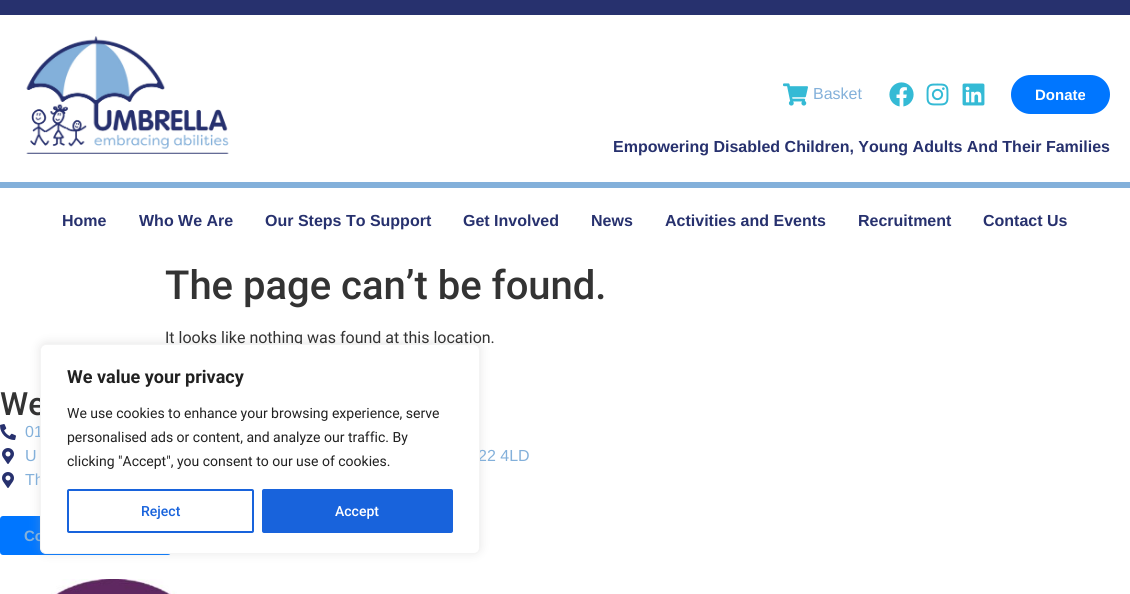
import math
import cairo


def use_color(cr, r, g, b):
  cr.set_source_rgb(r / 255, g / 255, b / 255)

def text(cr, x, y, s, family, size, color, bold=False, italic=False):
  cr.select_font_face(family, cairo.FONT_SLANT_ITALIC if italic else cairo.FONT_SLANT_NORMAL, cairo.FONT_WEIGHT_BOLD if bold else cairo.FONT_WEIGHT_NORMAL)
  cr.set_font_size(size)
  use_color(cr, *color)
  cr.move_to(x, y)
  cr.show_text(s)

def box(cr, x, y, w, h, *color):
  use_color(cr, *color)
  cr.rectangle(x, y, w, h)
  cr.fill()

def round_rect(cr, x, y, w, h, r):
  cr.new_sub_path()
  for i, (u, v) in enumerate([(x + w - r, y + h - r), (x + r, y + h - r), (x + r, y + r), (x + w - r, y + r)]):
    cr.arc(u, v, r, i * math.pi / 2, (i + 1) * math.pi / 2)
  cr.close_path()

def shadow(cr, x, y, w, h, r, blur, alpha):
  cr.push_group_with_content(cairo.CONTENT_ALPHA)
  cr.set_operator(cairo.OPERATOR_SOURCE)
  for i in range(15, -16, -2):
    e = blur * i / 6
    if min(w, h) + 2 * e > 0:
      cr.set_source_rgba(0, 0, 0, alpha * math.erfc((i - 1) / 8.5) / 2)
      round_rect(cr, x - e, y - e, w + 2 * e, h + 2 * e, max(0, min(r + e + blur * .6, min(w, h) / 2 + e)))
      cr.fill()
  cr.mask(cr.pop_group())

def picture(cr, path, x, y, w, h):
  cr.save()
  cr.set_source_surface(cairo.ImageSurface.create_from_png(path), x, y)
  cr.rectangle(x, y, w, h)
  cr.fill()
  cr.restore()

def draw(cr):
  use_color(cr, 255, 255, 255)
  cr.paint()
  box(cr, 0, 0, 1130, 15, 39, 49, 110)
  picture(cr, "img_01.png", 26, 36, 203, 118)
  picture(cr, "img_02.png", 783, 83, 25, 23)
  picture(cr, "img_03.png", 889, 82, 25, 25)
  picture(cr, "img_04.png", 926, 83, 23, 23)
  picture(cr, "img_05.png", 962, 83, 23, 23)
  use_color(cr, 0, 118, 255)
  round_rect(cr, 1011, 75, 99, 39, 19.5)
  cr.fill()
  box(cr, 0, 182, 1130, 6, 131, 176, 218)
  use_color(cr, 0, 118, 255)
  round_rect(cr, 0, 516, 171, 39, 3)
  cr.fill()
  use_color(cr, 172, 171, 171)
  shadow(cr, 40, 343, 440, 210, 6, 5, 0.3)
  picture(cr, "img_06.png", 0, 424, 16, 16)
  picture(cr, "img_07.png", 2, 448, 12, 16)
  picture(cr, "img_07.png", 2, 472, 12, 16)
  picture(cr, "img_08.png", 51, 579, 126, 15)
  cr.save()
  cr.rectangle(777, 82, 85, 25)
  cr.clip()
  text(cr, 813, 99, "Basket", "Liberation Sans", 16, (131, 176, 218))
  cr.restore()
  text(cr, 1035, 100, "Donate", "Liberation Sans", 15, (255, 255, 255), bold=True)
  text(cr, 613, 152, "Empowering Disabled Children, Young Adults And Their Families", "Liberation Sans", 16, (39, 49, 110), bold=True)
  text(cr, 62, 226, "Home", "Liberation Sans", 16, (39, 49, 110), bold=True)
  text(cr, 139, 226, "Who We Are", "Liberation Sans", 16, (39, 49, 110), bold=True)
  text(cr, 265, 226, "Our Steps To Support", "Liberation Sans", 16, (39, 49, 110), bold=True)
  text(cr, 463, 226, "Get Involved", "Liberation Sans", 16, (39, 49, 110), bold=True)
  text(cr, 591, 226, "News", "Liberation Sans", 16, (39, 49, 110), bold=True)
  text(cr, 665, 226, "Activities and Events", "Liberation Sans", 16, (39, 49, 110), bold=True)
  text(cr, 858, 226, "Recruitment", "Liberation Sans", 16, (39, 49, 110), bold=True)
  text(cr, 983, 226, "Contact Us", "Liberation Sans", 16, (39, 49, 110), bold=True)
  text(cr, 165, 299, "The page can’t be found.", "Roboto Medium", 40, (51, 51, 51))
  text(cr, 165, 343, "It looks like nothing was found at this location.", "Roboto", 16, (51, 51, 51))
  text(cr, 0, 415, "We", "Roboto Medium", 32, (51, 51, 51))
  text(cr, 25, 437, "01", "Liberation Sans", 16, (131, 176, 218))
  text(cr, 25, 461, "U", "Liberation Sans", 16, (131, 176, 218))
  text(cr, 478, 461, "22 4LD", "Liberation Sans", 16, (131, 176, 218))
  text(cr, 25, 485, "Th", "Liberation Sans", 16, (131, 176, 218))
  text(cr, 24, 541, "Co", "Liberation Sans", 15, (131, 176, 218), bold=True)
  use_color(cr, 255, 255, 255)
  round_rect(cr, 40.5, 344.5, 439, 209, 5.5)
  cr.fill_preserve()
  use_color(cr, 244, 244, 244)
  cr.set_line_width(1)
  cr.stroke()
  use_color(cr, 24, 99, 220)
  round_rect(cr, 263, 490, 189, 42, 1)
  cr.fill_preserve()
  cr.set_line_width(2)
  cr.stroke()
  text(cr, 335, 516, "Accept", "Roboto Medium", 14, (255, 255, 255))
  round_rect(cr, 68, 490, 185, 42, 1)
  use_color(cr, 24, 99, 220)
  cr.stroke()
  text(cr, 141, 516, "Reject", "Roboto Medium", 14, (24, 99, 220))
  text(cr, 67, 466, "clicking \"Accept\", you consent to our use of cookies.", "Roboto", 14, (33, 33, 33))
  text(cr, 67, 442, "personalised ads or content, and analyze our traffic. By", "Roboto", 14, (33, 33, 33))
  text(cr, 67, 418, "We use cookies to enhance your browsing experience, serve", "Roboto", 14, (33, 33, 33))
  text(cr, 67, 383, "We value your privacy", "Roboto", 18, (33, 33, 33), bold=True)


surface = cairo.ImageSurface(cairo.FORMAT_RGB24, 1130, 594)
cr = cairo.Context(surface)
options = cairo.FontOptions()
options.set_hint_metrics(cairo.HINT_METRICS_OFF)
options.set_hint_style(cairo.HINT_STYLE_NONE)
cr.set_font_options(options)
cr.set_miter_limit(4)
draw(cr)
surface.write_to_png("out.png")
